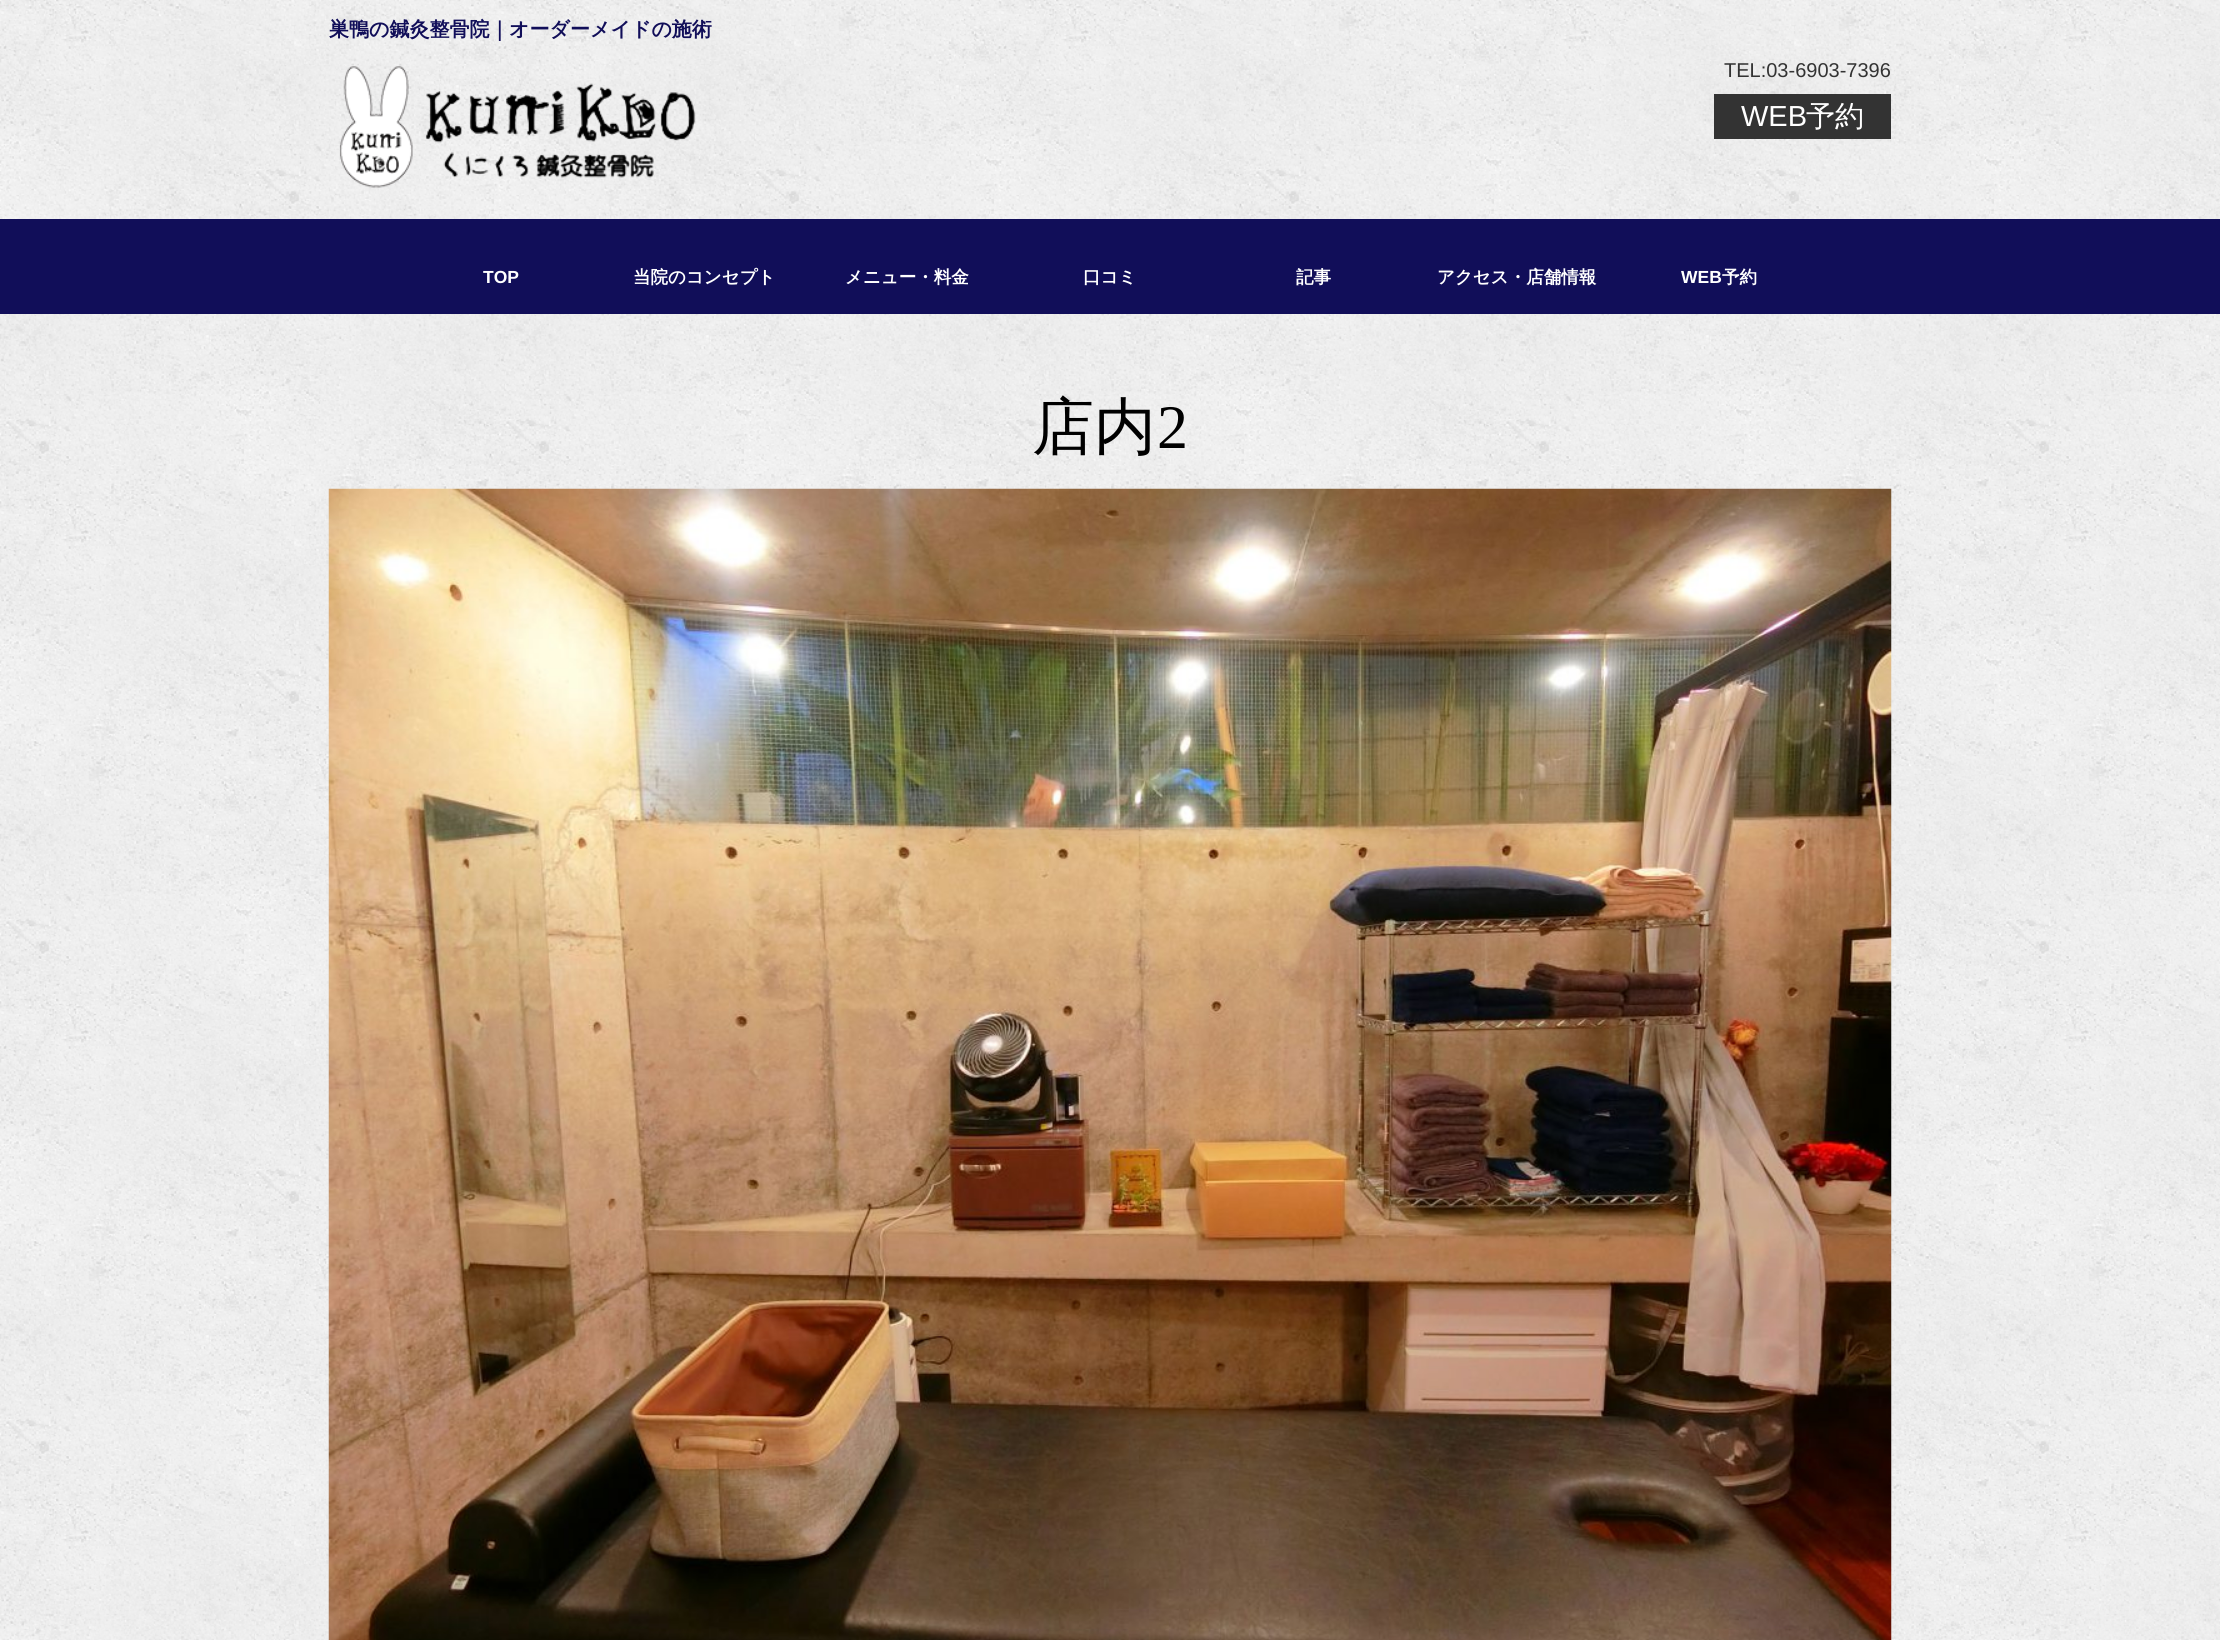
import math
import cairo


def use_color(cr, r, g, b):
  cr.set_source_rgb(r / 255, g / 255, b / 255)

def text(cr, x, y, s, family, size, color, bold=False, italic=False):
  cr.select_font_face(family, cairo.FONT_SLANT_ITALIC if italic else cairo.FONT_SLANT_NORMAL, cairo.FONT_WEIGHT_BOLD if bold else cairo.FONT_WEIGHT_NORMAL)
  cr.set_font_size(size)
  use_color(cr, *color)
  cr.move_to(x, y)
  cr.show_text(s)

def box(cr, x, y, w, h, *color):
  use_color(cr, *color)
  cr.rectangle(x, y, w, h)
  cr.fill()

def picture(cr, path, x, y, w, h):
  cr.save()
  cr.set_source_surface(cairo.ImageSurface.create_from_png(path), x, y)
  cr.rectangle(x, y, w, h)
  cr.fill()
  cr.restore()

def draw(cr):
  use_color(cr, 255, 255, 255)
  cr.paint()
  picture(cr, "img_01.png", 0, 0, 2220, 1640)
  picture(cr, "img_02.png", 339, 66, 357, 122)
  box(cr, 1714, 94, 177, 45, 51, 51, 51)
  box(cr, 0, 219, 2220, 95, 17, 14, 89)
  picture(cr, "img_03.png", 328, 488, 1564, 1152)
  text(cr, 329, 36, "巣鴨の鍼灸整骨院｜オーダーメイドの施術", "WenQuanYi Zen Hei", 20, (17, 14, 89), bold=True)
  text(cr, 1724, 77, "TEL:03-6903-7396", "Liberation Sans", 20, (51, 51, 51))
  text(cr, 1741, 126, "WEB", "Liberation Sans", 29, (255, 255, 255))
  text(cr, 1806, 126, "予約", "WenQuanYi Zen Hei Medium", 29, (255, 255, 255))
  text(cr, 483, 283, "TOP", "Liberation Sans", 17.5, (255, 255, 255), bold=True)
  text(cr, 633, 283, "当院のコンセプト", "WenQuanYi Zen Hei", 17.5, (255, 255, 255), bold=True)
  text(cr, 845, 283, "メニュー・料金", "WenQuanYi Zen Hei", 17.5, (255, 255, 255), bold=True)
  text(cr, 1083, 283, "口コミ", "WenQuanYi Zen Hei", 17.5, (255, 255, 255), bold=True)
  text(cr, 1296, 283, "記事", "WenQuanYi Zen Hei", 17.5, (255, 255, 255), bold=True)
  text(cr, 1437, 283, "アクセス・店舗情報", "WenQuanYi Zen Hei", 17.5, (255, 255, 255), bold=True)
  text(cr, 1681, 283, "WEB", "Liberation Sans", 17.5, (255, 255, 255), bold=True)
  text(cr, 1722, 283, "予約", "WenQuanYi Zen Hei", 17.5, (255, 255, 255), bold=True)
  text(cr, 1032, 448, "店内", "WenQuanYi Zen Hei Medium", 62, (0, 0, 0))
  text(cr, 1157, 448, "2", "Liberation Serif", 62, (0, 0, 0))


surface = cairo.ImageSurface(cairo.FORMAT_RGB24, 2220, 1640)
cr = cairo.Context(surface)
options = cairo.FontOptions()
options.set_hint_metrics(cairo.HINT_METRICS_OFF)
options.set_hint_style(cairo.HINT_STYLE_NONE)
cr.set_font_options(options)
cr.set_miter_limit(4)
draw(cr)
surface.write_to_png("out.png")
